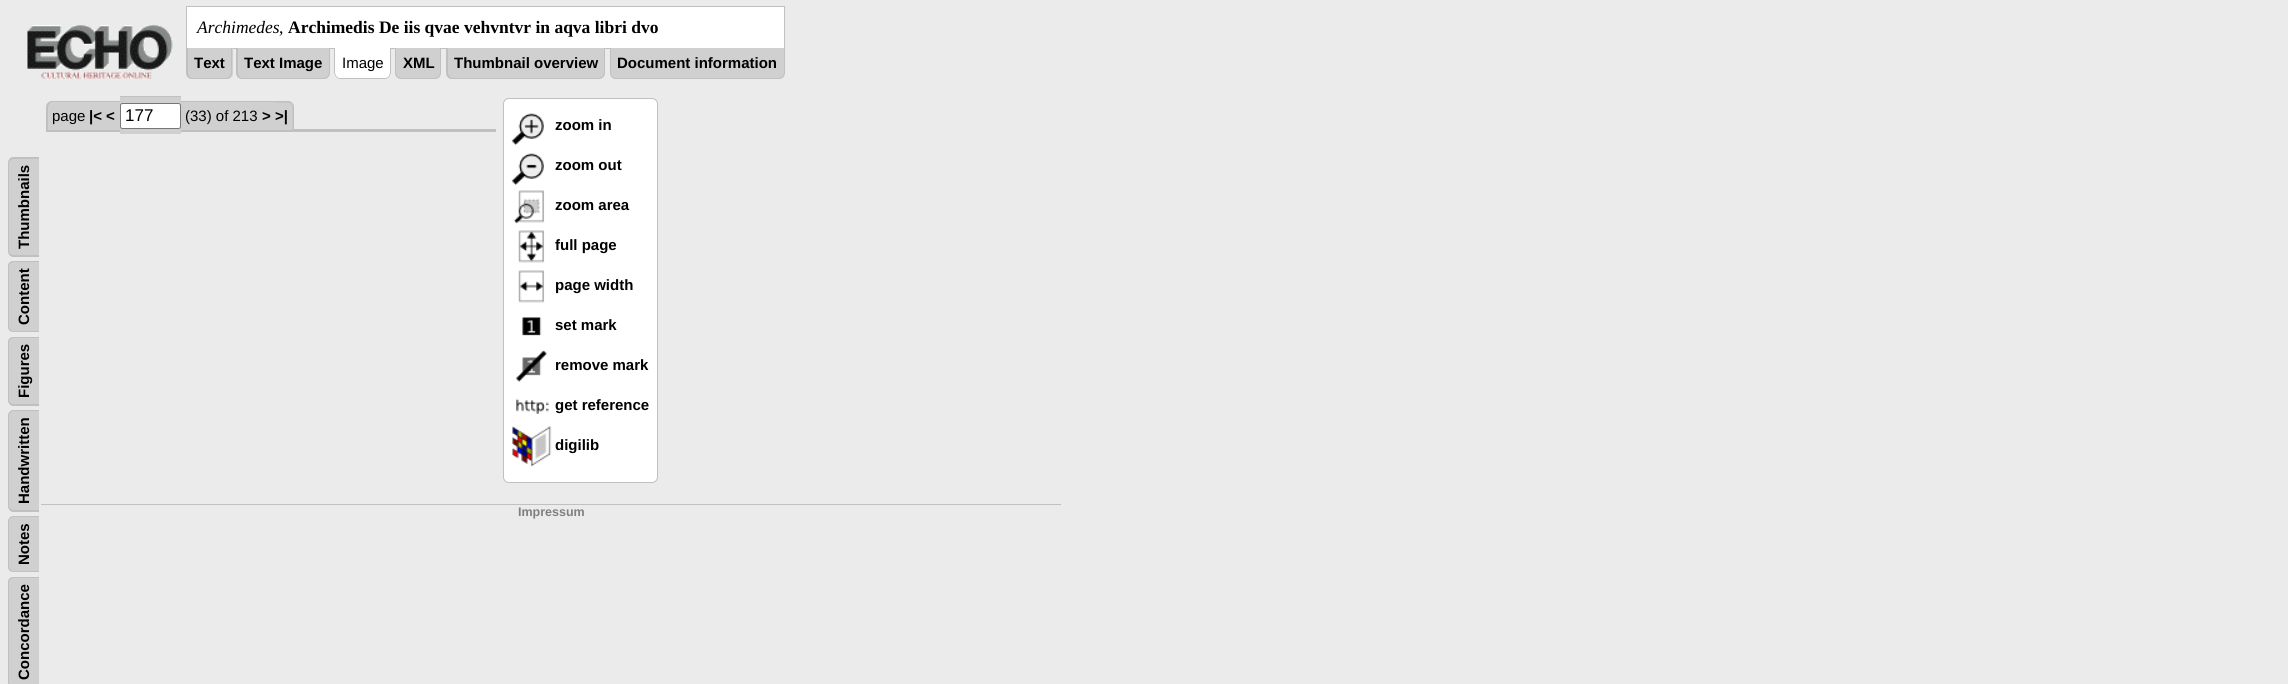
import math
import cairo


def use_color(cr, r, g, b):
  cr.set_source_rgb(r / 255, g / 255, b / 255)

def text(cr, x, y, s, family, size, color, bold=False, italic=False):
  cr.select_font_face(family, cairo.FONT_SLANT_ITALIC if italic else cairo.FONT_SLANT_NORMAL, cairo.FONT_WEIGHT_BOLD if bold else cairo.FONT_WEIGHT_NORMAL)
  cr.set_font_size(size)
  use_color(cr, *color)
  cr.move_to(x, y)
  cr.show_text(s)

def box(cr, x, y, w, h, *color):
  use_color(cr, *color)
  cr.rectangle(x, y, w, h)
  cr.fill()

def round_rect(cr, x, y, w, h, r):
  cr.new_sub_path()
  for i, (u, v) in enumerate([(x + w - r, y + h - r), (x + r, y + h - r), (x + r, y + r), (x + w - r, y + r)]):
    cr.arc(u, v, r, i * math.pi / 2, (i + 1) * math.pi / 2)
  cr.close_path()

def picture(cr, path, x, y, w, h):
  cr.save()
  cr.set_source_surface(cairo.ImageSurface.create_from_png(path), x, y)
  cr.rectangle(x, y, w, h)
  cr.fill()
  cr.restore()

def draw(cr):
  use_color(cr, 235, 235, 235)
  cr.paint()
  picture(cr, "img_01.png", 27, 25, 146, 54)
  use_color(cr, 255, 255, 255)
  cr.rectangle(186.5, 6.5, 598, 42)
  cr.fill_preserve()
  use_color(cr, 192, 192, 192)
  cr.set_line_width(1)
  cr.stroke()
  use_color(cr, 208, 208, 208)
  cr.new_path()
  cr.move_to(186, 48)
  cr.line_to(233, 48)
  cr.line_to(233, 73)
  cr.curve_to(233, 76.5, 230.5, 79, 227, 79)
  cr.line_to(192, 79)
  cr.curve_to(188.5, 79, 186, 76.5, 186, 73)
  cr.close_path()
  cr.fill()
  use_color(cr, 192, 192, 192)
  cr.set_fill_rule(cairo.FILL_RULE_EVEN_ODD)
  cr.new_path()
  cr.move_to(186, 48)
  cr.line_to(232, 48)
  cr.line_to(232, 72)
  cr.curve_to(232, 76, 230, 79, 226, 79)
  cr.line_to(192, 79)
  cr.curve_to(189, 79, 186, 76, 186, 72)
  cr.close_path()
  cr.move_to(188, 48)
  cr.line_to(231, 48)
  cr.line_to(231, 72)
  cr.curve_to(231, 75, 229, 78, 226, 78)
  cr.line_to(192, 78)
  cr.curve_to(190, 78, 188, 75, 188, 72)
  cr.close_path()
  cr.fill()
  use_color(cr, 208, 208, 208)
  cr.new_path()
  cr.move_to(236, 48)
  cr.line_to(330, 48)
  cr.line_to(330, 73)
  cr.curve_to(330, 76.5, 327.5, 79, 324, 79)
  cr.line_to(242, 79)
  cr.curve_to(238.5, 79, 236, 76.5, 236, 73)
  cr.close_path()
  cr.fill()
  use_color(cr, 192, 192, 192)
  cr.new_path()
  cr.move_to(236, 48)
  cr.line_to(330, 48)
  cr.line_to(330, 72)
  cr.curve_to(330, 76, 327, 79, 324, 79)
  cr.line_to(242, 79)
  cr.curve_to(239, 79, 236, 76, 236, 72)
  cr.close_path()
  cr.move_to(238, 48)
  cr.line_to(329, 48)
  cr.line_to(329, 72)
  cr.curve_to(329, 75, 327, 78, 324, 78)
  cr.line_to(242, 78)
  cr.curve_to(240, 78, 238, 75, 238, 72)
  cr.close_path()
  cr.fill()
  use_color(cr, 255, 255, 255)
  cr.new_path()
  cr.move_to(334, 48)
  cr.line_to(391, 48)
  cr.line_to(391, 73)
  cr.curve_to(391, 76.5, 388.5, 79, 385, 79)
  cr.line_to(340, 79)
  cr.curve_to(336.5, 79, 334, 76.5, 334, 73)
  cr.close_path()
  cr.fill()
  use_color(cr, 192, 192, 192)
  cr.new_path()
  cr.move_to(334, 48)
  cr.line_to(391, 48)
  cr.line_to(391, 72)
  cr.curve_to(391, 76, 388, 79, 385, 79)
  cr.line_to(340, 79)
  cr.curve_to(337, 79, 334, 76, 334, 72)
  cr.close_path()
  cr.move_to(335, 48)
  cr.line_to(390, 48)
  cr.line_to(390, 72)
  cr.curve_to(390, 75, 388, 78, 385, 78)
  cr.line_to(340, 78)
  cr.curve_to(337, 78, 335, 75, 335, 72)
  cr.close_path()
  cr.fill()
  use_color(cr, 208, 208, 208)
  cr.new_path()
  cr.move_to(395, 48)
  cr.line_to(441, 48)
  cr.line_to(441, 73)
  cr.curve_to(441, 76.5, 438.5, 79, 435, 79)
  cr.line_to(401, 79)
  cr.curve_to(397.5, 79, 395, 76.5, 395, 73)
  cr.close_path()
  cr.fill()
  use_color(cr, 192, 192, 192)
  cr.new_path()
  cr.move_to(395, 48)
  cr.line_to(441, 48)
  cr.line_to(441, 72)
  cr.curve_to(441, 76, 438, 79, 435, 79)
  cr.line_to(401, 79)
  cr.curve_to(398, 79, 395, 76, 395, 72)
  cr.close_path()
  cr.move_to(396, 48)
  cr.line_to(440, 48)
  cr.line_to(440, 72)
  cr.curve_to(440, 75, 438, 78, 435, 78)
  cr.line_to(401, 78)
  cr.curve_to(398, 78, 396, 75, 396, 72)
  cr.close_path()
  cr.fill()
  use_color(cr, 208, 208, 208)
  cr.new_path()
  cr.move_to(446, 48)
  cr.line_to(605, 48)
  cr.line_to(605, 73)
  cr.curve_to(605, 76.5, 602.5, 79, 599, 79)
  cr.line_to(452, 79)
  cr.curve_to(448.5, 79, 446, 76.5, 446, 73)
  cr.close_path()
  cr.fill()
  use_color(cr, 192, 192, 192)
  cr.new_path()
  cr.move_to(446, 48)
  cr.line_to(605, 48)
  cr.line_to(605, 72)
  cr.curve_to(605, 76, 602, 79, 599, 79)
  cr.line_to(452, 79)
  cr.curve_to(449, 79, 446, 76, 446, 72)
  cr.close_path()
  cr.move_to(448, 48)
  cr.line_to(604, 48)
  cr.line_to(604, 72)
  cr.curve_to(604, 75, 602, 78, 599, 78)
  cr.line_to(452, 78)
  cr.curve_to(450, 78, 448, 75, 448, 72)
  cr.close_path()
  cr.fill()
  use_color(cr, 208, 208, 208)
  cr.new_path()
  cr.move_to(610, 48)
  cr.line_to(785, 48)
  cr.line_to(785, 73)
  cr.curve_to(785, 76.5, 782.5, 79, 779, 79)
  cr.line_to(616, 79)
  cr.curve_to(612.5, 79, 610, 76.5, 610, 73)
  cr.close_path()
  cr.fill()
  use_color(cr, 192, 192, 192)
  cr.new_path()
  cr.move_to(610, 48)
  cr.line_to(785, 48)
  cr.line_to(785, 72)
  cr.curve_to(785, 76, 782, 79, 779, 79)
  cr.line_to(616, 79)
  cr.curve_to(613, 79, 610, 76, 610, 72)
  cr.close_path()
  cr.move_to(611, 48)
  cr.line_to(784, 48)
  cr.line_to(784, 72)
  cr.curve_to(784, 75, 782, 78, 779, 78)
  cr.line_to(616, 78)
  cr.curve_to(613, 78, 611, 75, 611, 72)
  cr.close_path()
  cr.fill()
  box(cr, 46, 129, 450, 3, 192, 192, 192)
  use_color(cr, 208, 208, 208)
  cr.new_path()
  cr.move_to(52, 101)
  cr.line_to(90, 101)
  cr.line_to(90, 130)
  cr.line_to(46, 130)
  cr.line_to(46, 107)
  cr.curve_to(46, 103.5, 48.5, 101, 52, 101)
  cr.close_path()
  cr.fill()
  use_color(cr, 192, 192, 192)
  cr.new_path()
  cr.move_to(52, 101)
  cr.line_to(90, 101)
  cr.line_to(90, 130)
  cr.line_to(46, 130)
  cr.line_to(46, 108)
  cr.curve_to(46, 104, 49, 101, 52, 101)
  cr.close_path()
  cr.move_to(52, 102)
  cr.line_to(90, 102)
  cr.line_to(90, 130)
  cr.line_to(48, 130)
  cr.line_to(48, 108)
  cr.curve_to(48, 105, 50, 102, 52, 102)
  cr.close_path()
  cr.fill()
  box(cr, 90, 102, 13, 28, 208, 208, 208)
  box(cr, 90, 101, 13, 1, 192, 192, 192)
  box(cr, 103, 101, 3, 29, 208, 208, 208)
  box(cr, 103, 101, 12, 1, 192, 192, 192)
  box(cr, 106, 102, 9, 28, 208, 208, 208)
  box(cr, 115, 101, 5, 29, 208, 208, 208)
  box(cr, 115, 101, 5, 1, 192, 192, 192)
  box(cr, 120, 97, 61, 37, 208, 208, 208)
  box(cr, 120, 96, 61, 1, 192, 192, 192)
  box(cr, 181, 101, 4, 29, 208, 208, 208)
  box(cr, 181, 101, 89, 1, 192, 192, 192)
  box(cr, 185, 102, 85, 28, 208, 208, 208)
  box(cr, 270, 101, 5, 29, 208, 208, 208)
  box(cr, 270, 101, 5, 1, 192, 192, 192)
  use_color(cr, 208, 208, 208)
  cr.new_path()
  cr.move_to(275, 101)
  cr.line_to(288, 101)
  cr.curve_to(291.5, 101, 294, 103.5, 294, 107)
  cr.line_to(294, 130)
  cr.line_to(275, 130)
  cr.close_path()
  cr.fill()
  use_color(cr, 192, 192, 192)
  cr.new_path()
  cr.move_to(275, 101)
  cr.line_to(287.5, 101)
  cr.curve_to(291, 101, 294, 104, 294, 107.5)
  cr.line_to(294, 130)
  cr.line_to(275, 130)
  cr.close_path()
  cr.move_to(275, 102.5)
  cr.line_to(287.5, 102.5)
  cr.curve_to(290.5, 102.5, 292.5, 104.5, 292.5, 107.5)
  cr.line_to(292.5, 130)
  cr.line_to(275, 130)
  cr.close_path()
  cr.fill()
  use_color(cr, 255, 255, 255)
  round_rect(cr, 120.5, 103.5, 60, 25, 2)
  cr.fill_preserve()
  use_color(cr, 118, 118, 118)
  cr.stroke()
  use_color(cr, 208, 208, 208)
  cr.set_fill_rule(cairo.FILL_RULE_WINDING)
  cr.new_path()
  cr.move_to(8, 250)
  cr.line_to(8, 164)
  cr.curve_to(8, 160, 10, 157, 14, 157)
  cr.line_to(39, 157)
  cr.line_to(39, 257)
  cr.line_to(14, 257)
  cr.curve_to(10, 257, 8, 254, 8, 250)
  cr.close_path()
  cr.fill()
  use_color(cr, 192, 192, 192)
  cr.set_fill_rule(cairo.FILL_RULE_EVEN_ODD)
  cr.new_path()
  cr.move_to(8, 250)
  cr.line_to(8, 164)
  cr.curve_to(8, 160, 10, 157, 14, 157)
  cr.line_to(39, 157)
  cr.line_to(39, 257)
  cr.line_to(14, 257)
  cr.curve_to(10, 257, 8, 254, 8, 250)
  cr.close_path()
  cr.move_to(9, 250)
  cr.line_to(9, 164)
  cr.curve_to(9, 161, 11, 159, 14, 159)
  cr.line_to(39, 159)
  cr.line_to(39, 255)
  cr.line_to(14, 255)
  cr.curve_to(11, 255, 9, 253, 9, 250)
  cr.close_path()
  cr.fill()
  use_color(cr, 208, 208, 208)
  cr.set_fill_rule(cairo.FILL_RULE_WINDING)
  cr.new_path()
  cr.move_to(8, 326)
  cr.line_to(8, 267)
  cr.curve_to(8, 263, 10, 261, 14, 261)
  cr.line_to(39, 261)
  cr.line_to(39, 332)
  cr.line_to(14, 332)
  cr.curve_to(10, 332, 8, 330, 8, 326)
  cr.close_path()
  cr.fill()
  use_color(cr, 192, 192, 192)
  cr.set_fill_rule(cairo.FILL_RULE_EVEN_ODD)
  cr.new_path()
  cr.move_to(8, 326)
  cr.line_to(8, 267)
  cr.curve_to(8, 263, 10, 261, 14, 261)
  cr.line_to(39, 261)
  cr.line_to(39, 332)
  cr.line_to(14, 332)
  cr.curve_to(10, 332, 8, 330, 8, 326)
  cr.close_path()
  cr.move_to(9, 326)
  cr.line_to(9, 267)
  cr.curve_to(9, 264, 11, 262, 14, 262)
  cr.line_to(39, 262)
  cr.line_to(39, 331)
  cr.line_to(14, 331)
  cr.curve_to(11, 331, 9, 329, 9, 326)
  cr.close_path()
  cr.fill()
  use_color(cr, 208, 208, 208)
  cr.set_fill_rule(cairo.FILL_RULE_WINDING)
  cr.new_path()
  cr.move_to(8, 399)
  cr.line_to(8, 343)
  cr.curve_to(8, 339, 10, 337, 14, 337)
  cr.line_to(39, 337)
  cr.line_to(39, 406)
  cr.line_to(14, 406)
  cr.curve_to(10, 406, 8, 403, 8, 399)
  cr.close_path()
  cr.fill()
  use_color(cr, 192, 192, 192)
  cr.set_fill_rule(cairo.FILL_RULE_EVEN_ODD)
  cr.new_path()
  cr.move_to(8, 399)
  cr.line_to(8, 343)
  cr.curve_to(8, 339, 10, 337, 14, 337)
  cr.line_to(39, 337)
  cr.line_to(39, 406)
  cr.line_to(14, 406)
  cr.curve_to(10, 406, 8, 403, 8, 399)
  cr.close_path()
  cr.move_to(9, 399)
  cr.line_to(9, 343)
  cr.curve_to(9, 340, 11, 338, 14, 338)
  cr.line_to(39, 338)
  cr.line_to(39, 404)
  cr.line_to(14, 404)
  cr.curve_to(11, 404, 9, 402, 9, 399)
  cr.close_path()
  cr.fill()
  use_color(cr, 208, 208, 208)
  cr.set_fill_rule(cairo.FILL_RULE_WINDING)
  cr.new_path()
  cr.move_to(8, 505)
  cr.line_to(8, 416)
  cr.curve_to(8, 413, 10, 410, 14, 410)
  cr.line_to(39, 410)
  cr.line_to(39, 512)
  cr.line_to(14, 512)
  cr.curve_to(10, 512, 8, 509, 8, 505)
  cr.close_path()
  cr.fill()
  use_color(cr, 192, 192, 192)
  cr.set_fill_rule(cairo.FILL_RULE_EVEN_ODD)
  cr.new_path()
  cr.move_to(8, 505)
  cr.line_to(8, 416)
  cr.curve_to(8, 413, 10, 410, 14, 410)
  cr.line_to(39, 410)
  cr.line_to(39, 512)
  cr.line_to(14, 512)
  cr.curve_to(10, 512, 8, 509, 8, 505)
  cr.close_path()
  cr.move_to(9, 505)
  cr.line_to(9, 416)
  cr.curve_to(9, 413, 11, 411, 14, 411)
  cr.line_to(39, 411)
  cr.line_to(39, 510)
  cr.line_to(14, 510)
  cr.curve_to(11, 510, 9, 508, 9, 505)
  cr.close_path()
  cr.fill()
  use_color(cr, 208, 208, 208)
  cr.set_fill_rule(cairo.FILL_RULE_WINDING)
  cr.new_path()
  cr.move_to(8, 566)
  cr.line_to(8, 522)
  cr.curve_to(8, 519, 10, 516, 14, 516)
  cr.line_to(39, 516)
  cr.line_to(39, 572)
  cr.line_to(14, 572)
  cr.curve_to(10, 572, 8, 570, 8, 566)
  cr.close_path()
  cr.fill()
  use_color(cr, 192, 192, 192)
  cr.set_fill_rule(cairo.FILL_RULE_EVEN_ODD)
  cr.new_path()
  cr.move_to(8, 566)
  cr.line_to(8, 522)
  cr.curve_to(8, 519, 10, 516, 14, 516)
  cr.line_to(39, 516)
  cr.line_to(39, 572)
  cr.line_to(14, 572)
  cr.curve_to(10, 572, 8, 570, 8, 566)
  cr.close_path()
  cr.move_to(9, 566)
  cr.line_to(9, 522)
  cr.curve_to(9, 519, 11, 517, 14, 517)
  cr.line_to(39, 517)
  cr.line_to(39, 571)
  cr.line_to(14, 571)
  cr.curve_to(11, 571, 9, 569, 9, 566)
  cr.close_path()
  cr.fill()
  use_color(cr, 208, 208, 208)
  cr.set_fill_rule(cairo.FILL_RULE_WINDING)
  cr.new_path()
  cr.move_to(8, 681)
  cr.line_to(8, 583)
  cr.curve_to(8, 579, 10, 577, 14, 577)
  cr.line_to(39, 577)
  cr.line_to(39, 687)
  cr.line_to(14, 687)
  cr.curve_to(10, 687, 8, 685, 8, 681)
  cr.close_path()
  cr.fill()
  use_color(cr, 192, 192, 192)
  cr.set_fill_rule(cairo.FILL_RULE_EVEN_ODD)
  cr.new_path()
  cr.move_to(8, 681)
  cr.line_to(8, 583)
  cr.curve_to(8, 579, 10, 577, 14, 577)
  cr.line_to(39, 577)
  cr.line_to(39, 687)
  cr.line_to(14, 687)
  cr.curve_to(10, 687, 8, 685, 8, 681)
  cr.close_path()
  cr.move_to(9, 681)
  cr.line_to(9, 583)
  cr.curve_to(9, 580, 11, 578, 14, 578)
  cr.line_to(39, 578)
  cr.line_to(39, 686)
  cr.line_to(14, 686)
  cr.curve_to(11, 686, 9, 684, 9, 681)
  cr.close_path()
  cr.fill()
  use_color(cr, 255, 255, 255)
  round_rect(cr, 503.5, 98.5, 154, 384, 5.5)
  cr.fill_preserve()
  use_color(cr, 192, 192, 192)
  cr.stroke()
  picture(cr, "img_02.png", 511, 113, 33, 33)
  picture(cr, "img_03.png", 511, 153, 33, 33)
  picture(cr, "img_04.png", 513, 190, 32, 34)
  picture(cr, "img_05.png", 518, 230, 27, 33)
  picture(cr, "img_06.png", 518, 270, 27, 33)
  picture(cr, "img_07.png", 522, 317, 20, 19)
  picture(cr, "img_08.png", 516, 350, 31, 32)
  picture(cr, "img_09.png", 516, 398, 33, 16)
  picture(cr, "img_10.png", 512, 426, 40, 41)
  box(cr, 41, 504, 1020, 1, 192, 192, 192)
  text(cr, 197, 33, "Archimedes", "Liberation Serif", 17.5, (0, 0, 0), italic=True)
  text(cr, 279, 33, ",", "Liberation Serif", 17.5, (0, 0, 0))
  text(cr, 288, 33, "Archimedis De iis qvae vehvntvr in aqva libri dvo", "Liberation Serif", 17.5, (0, 0, 0), bold=True)
  text(cr, 194, 68, "Text", "Liberation Sans", 15, (0, 0, 0), bold=True)
  text(cr, 244, 68, "Text Image", "Liberation Sans", 15, (0, 0, 0), bold=True)
  text(cr, 342, 68, "Image", "Liberation Sans", 15, (0, 0, 0))
  text(cr, 403, 68, "XML", "Liberation Sans", 15, (0, 0, 0), bold=True)
  text(cr, 454, 68, "Thumbnail overview", "Liberation Sans", 15, (0, 0, 0), bold=True)
  text(cr, 617, 68, "Document information", "Liberation Sans", 15, (0, 0, 0), bold=True)
  text(cr, 52, 121, "page", "Liberation Sans", 15, (0, 0, 0))
  text(cr, 89, 121, "|< <", "Liberation Sans", 15, (0, 0, 0), bold=True)
  text(cr, 125, 121, "177", "Liberation Sans", 17, (0, 0, 0))
  text(cr, 185, 121, "(33) of 213", "Liberation Sans", 15, (0, 0, 0))
  text(cr, 262, 121, "> >|", "Liberation Sans", 15, (0, 0, 0), bold=True)
  cr.save()
  cr.translate(29, 249)
  cr.rotate(-90 * math.pi / 180)
  text(cr, 0, 0, "Thumbnails", "Liberation Sans", 15, (0, 0, 0), bold=True)
  cr.restore()
  cr.save()
  cr.translate(29, 325)
  cr.rotate(-90 * math.pi / 180)
  text(cr, 0, 0, "Content", "Liberation Sans", 15, (0, 0, 0), bold=True)
  cr.restore()
  cr.save()
  cr.translate(29, 398)
  cr.rotate(-90 * math.pi / 180)
  text(cr, 0, 0, "Figures", "Liberation Sans", 15, (0, 0, 0), bold=True)
  cr.restore()
  cr.save()
  cr.translate(29, 504)
  cr.rotate(-90 * math.pi / 180)
  text(cr, 0, 0, "Handwritten", "Liberation Sans", 15, (0, 0, 0), bold=True)
  cr.restore()
  cr.save()
  cr.translate(29, 565)
  cr.rotate(-90 * math.pi / 180)
  text(cr, 0, 0, "Notes", "Liberation Sans", 15, (0, 0, 0), bold=True)
  cr.restore()
  cr.save()
  cr.translate(29, 680)
  cr.rotate(-90 * math.pi / 180)
  text(cr, 0, 0, "Concordance", "Liberation Sans", 15, (0, 0, 0), bold=True)
  cr.restore()
  text(cr, 555, 130, "zoom in", "Liberation Sans", 15, (0, 0, 0), bold=True)
  text(cr, 555, 170, "zoom out", "Liberation Sans", 15, (0, 0, 0), bold=True)
  text(cr, 555, 210, "zoom area", "Liberation Sans", 15, (0, 0, 0), bold=True)
  text(cr, 555, 250, "full page", "Liberation Sans", 15, (0, 0, 0), bold=True)
  text(cr, 555, 290, "page width", "Liberation Sans", 15, (0, 0, 0), bold=True)
  text(cr, 555, 330, "set mark", "Liberation Sans", 15, (0, 0, 0), bold=True)
  text(cr, 555, 370, "remove mark", "Liberation Sans", 15, (0, 0, 0), bold=True)
  text(cr, 555, 410, "get reference", "Liberation Sans", 15, (0, 0, 0), bold=True)
  text(cr, 555, 450, "digilib", "Liberation Sans", 15, (0, 0, 0), bold=True)
  text(cr, 518, 516, "Impressum", "Liberation Sans", 12.5, (128, 128, 128), bold=True)


surface = cairo.ImageSurface(cairo.FORMAT_RGB24, 2288, 684)
cr = cairo.Context(surface)
options = cairo.FontOptions()
options.set_hint_metrics(cairo.HINT_METRICS_OFF)
options.set_hint_style(cairo.HINT_STYLE_NONE)
cr.set_font_options(options)
cr.set_miter_limit(4)
draw(cr)
surface.write_to_png("out.png")
